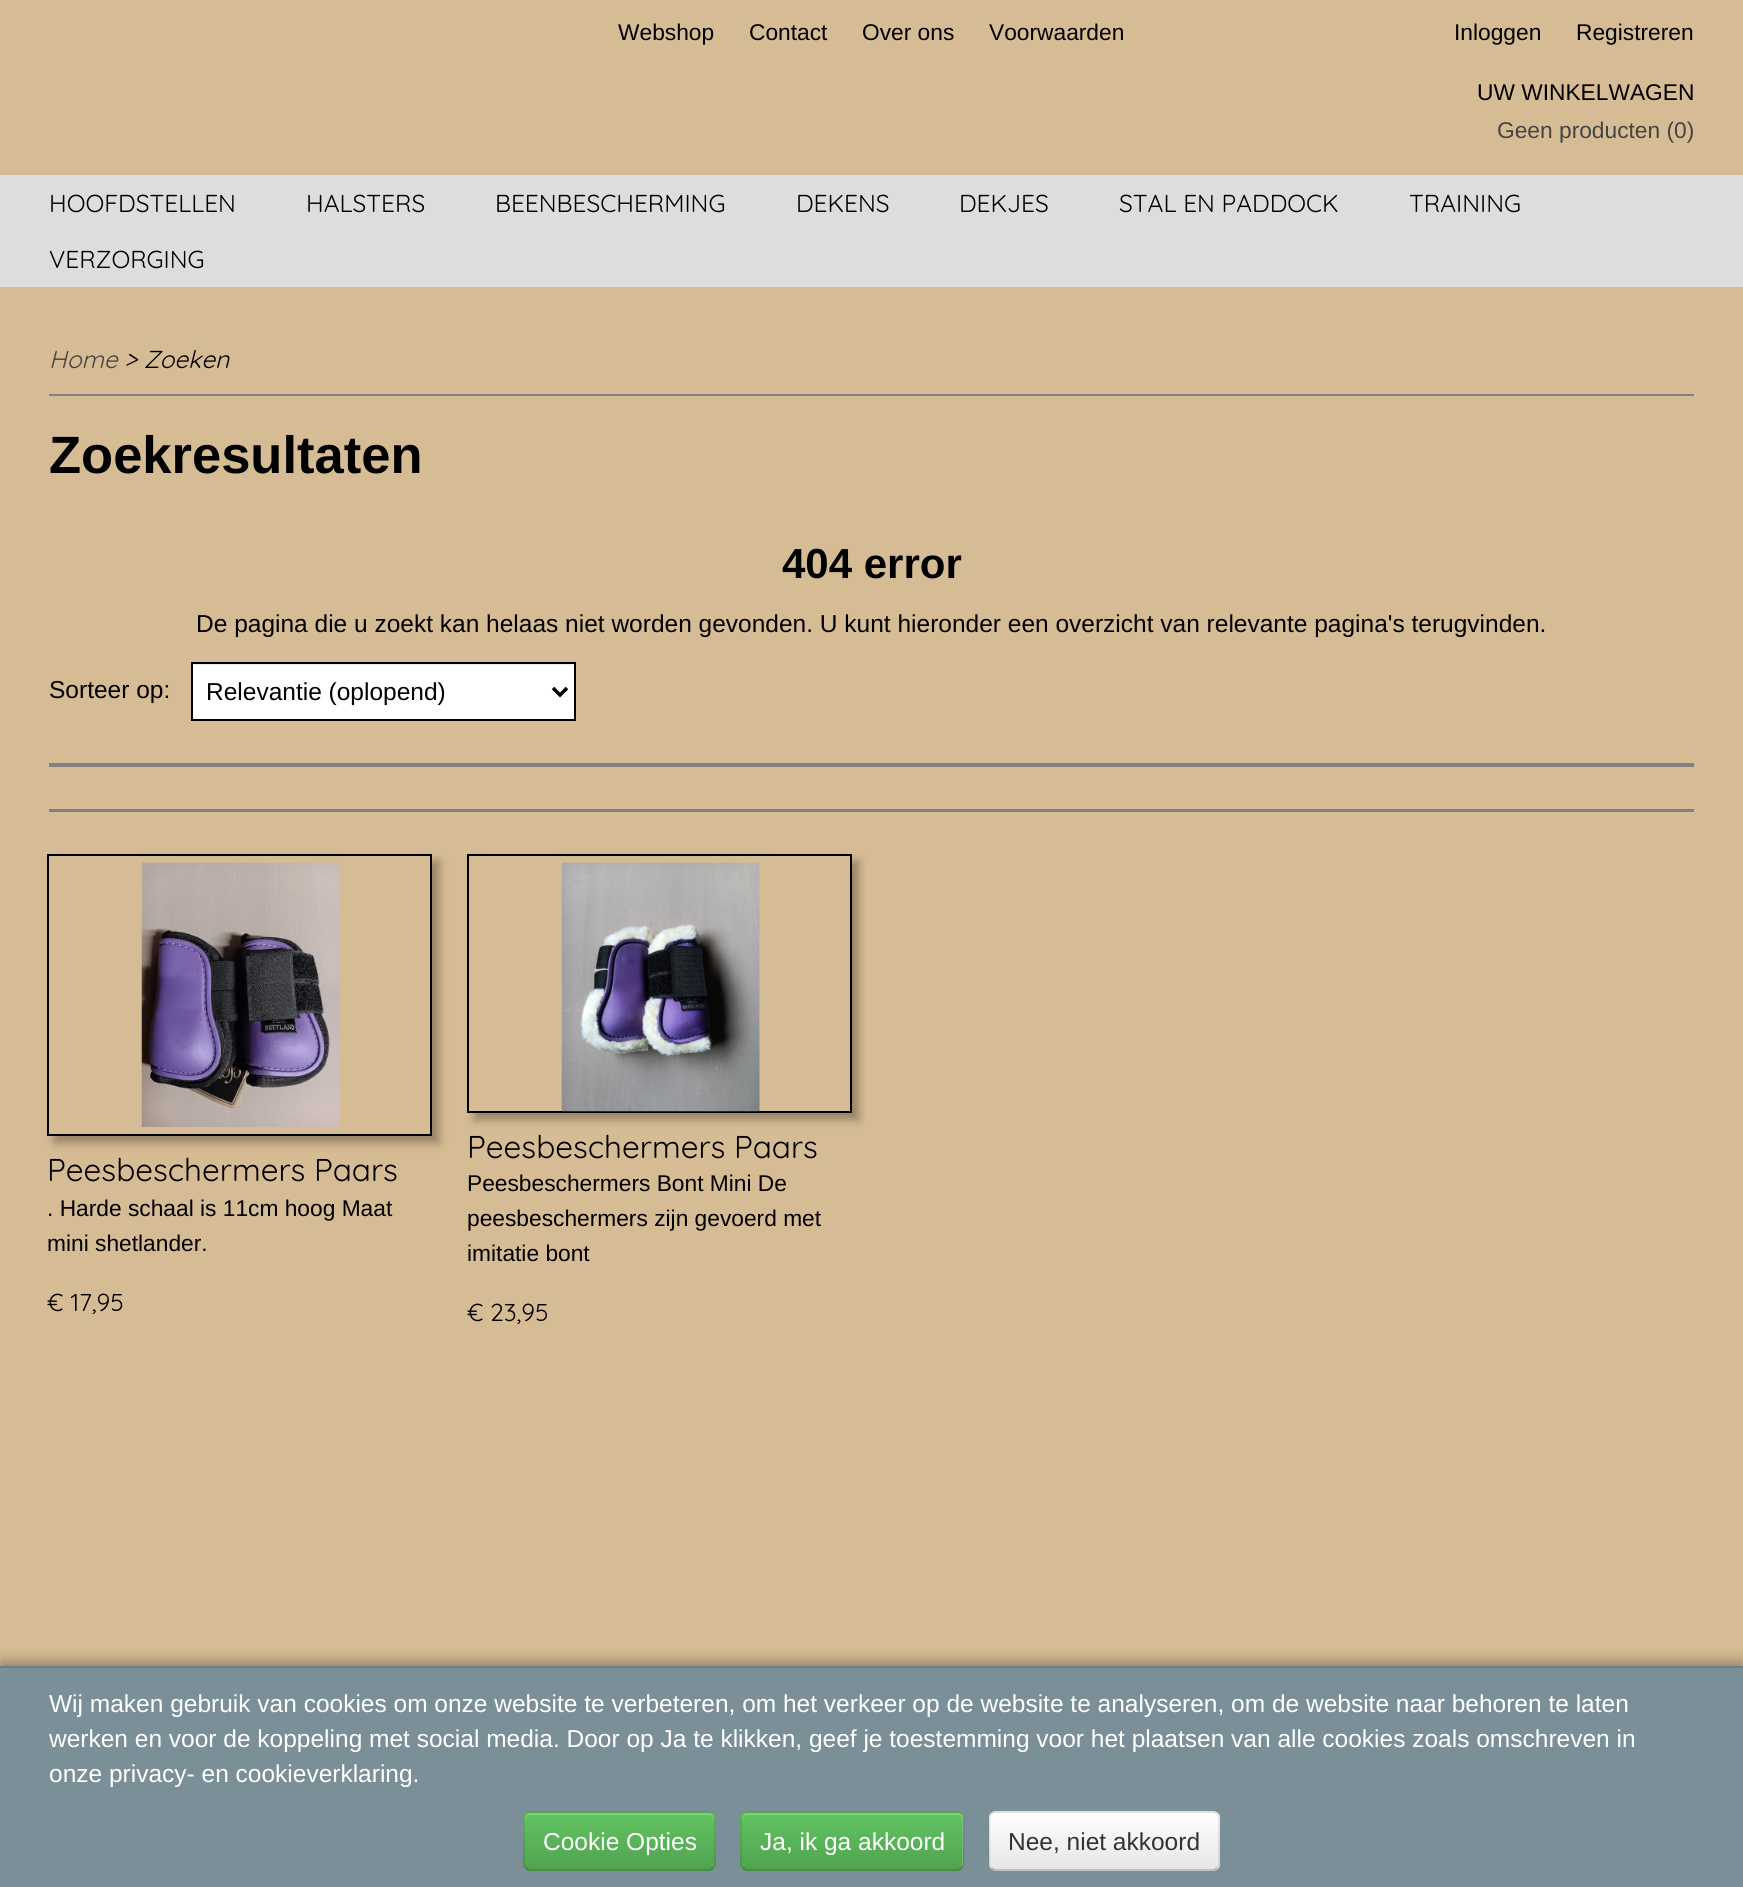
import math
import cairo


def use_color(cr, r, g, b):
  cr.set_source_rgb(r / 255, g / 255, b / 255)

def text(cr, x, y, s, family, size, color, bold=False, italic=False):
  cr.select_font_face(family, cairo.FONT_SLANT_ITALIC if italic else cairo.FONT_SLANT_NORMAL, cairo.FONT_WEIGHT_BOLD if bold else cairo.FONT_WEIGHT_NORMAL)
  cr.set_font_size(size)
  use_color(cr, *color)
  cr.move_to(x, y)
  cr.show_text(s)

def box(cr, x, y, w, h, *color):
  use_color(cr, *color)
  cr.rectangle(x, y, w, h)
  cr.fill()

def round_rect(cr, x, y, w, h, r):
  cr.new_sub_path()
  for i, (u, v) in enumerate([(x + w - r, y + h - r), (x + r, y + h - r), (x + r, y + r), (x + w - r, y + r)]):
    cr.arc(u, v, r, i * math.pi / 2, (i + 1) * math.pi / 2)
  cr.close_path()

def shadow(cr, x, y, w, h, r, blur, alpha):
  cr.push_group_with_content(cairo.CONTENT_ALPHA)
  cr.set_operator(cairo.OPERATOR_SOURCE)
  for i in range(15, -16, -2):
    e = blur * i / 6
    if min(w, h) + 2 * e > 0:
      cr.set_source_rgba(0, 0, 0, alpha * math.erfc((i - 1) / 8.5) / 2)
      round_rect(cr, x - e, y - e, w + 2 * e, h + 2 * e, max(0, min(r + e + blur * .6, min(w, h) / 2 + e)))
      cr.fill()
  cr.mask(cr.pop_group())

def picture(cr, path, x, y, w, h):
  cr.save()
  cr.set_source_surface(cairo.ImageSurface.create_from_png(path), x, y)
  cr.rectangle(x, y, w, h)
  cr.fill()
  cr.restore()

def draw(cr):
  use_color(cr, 214, 188, 148)
  cr.paint()
  box(cr, 0, 175, 1743, 112, 221, 221, 221)
  box(cr, 49, 394, 1645, 2, 130, 129, 129)
  box(cr, 193, 665, 381, 54, 255, 255, 255)
  box(cr, 193, 664, 381, 1, 236, 236, 236)
  cr.rectangle(192, 663, 383, 57)
  use_color(cr, 0, 0, 0)
  cr.stroke()
  cr.new_path()
  cr.move_to(553, 688)
  cr.line_to(560, 695)
  cr.line_to(567, 688)
  cr.set_line_width(3.5)
  cr.stroke()
  box(cr, 49, 763, 1645, 4, 130, 129, 129)
  box(cr, 49, 809, 1645, 3, 130, 129, 129)
  cr.save()
  cr.set_fill_rule(cairo.FILL_RULE_EVEN_ODD)
  cr.new_path()
  cr.move_to(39, 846)
  cr.line_to(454, 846)
  cr.line_to(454, 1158)
  cr.line_to(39, 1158)
  cr.close_path()
  cr.move_to(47, 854)
  cr.line_to(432, 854)
  cr.line_to(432, 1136)
  cr.line_to(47, 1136)
  cr.close_path()
  cr.clip()
  use_color(cr, 0, 0, 0)
  shadow(cr, 54, 861, 385, 282, 0, 4.5, 0.3)
  cr.restore()
  cr.rectangle(48, 855, 383, 280)
  use_color(cr, 0, 0, 0)
  cr.set_line_width(2)
  cr.stroke()
  picture(cr, "img_01.png", 141, 862, 199, 265)
  cr.save()
  cr.set_fill_rule(cairo.FILL_RULE_EVEN_ODD)
  cr.new_path()
  cr.move_to(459, 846)
  cr.line_to(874, 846)
  cr.line_to(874, 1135)
  cr.line_to(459, 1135)
  cr.close_path()
  cr.move_to(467, 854)
  cr.line_to(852, 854)
  cr.line_to(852, 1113)
  cr.line_to(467, 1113)
  cr.close_path()
  cr.clip()
  use_color(cr, 0, 0, 0)
  shadow(cr, 474, 861, 385, 259, 0, 4.5, 0.3)
  cr.restore()
  cr.rectangle(468, 855, 383, 257)
  cr.stroke()
  picture(cr, "img_02.png", 561, 862, 199, 250)
  use_color(cr, 0, 0, 0)
  shadow(cr, 0, 1661, 1743, 222, 0, 6, 0.3)
  box(cr, 0, 1668, 1743, 219, 122, 143, 152)
  box(cr, 0, 1666, 1743, 2, 105, 126, 135)
  use_color(cr, 91, 183, 91)
  round_rect(cr, 523, 1811, 193, 60, 7)
  cr.fill()
  cr.save()
  round_rect(cr, 523, 1811, 193, 60, 7)
  cr.clip()
  gradient = cairo.LinearGradient(620, 1813, 620, 1869)
  gradient.add_color_stop_rgba(0, 0.384, 0.769, 0.384, 1)
  gradient.add_color_stop_rgba(1, 0.318, 0.639, 0.318, 1)
  cr.set_source(gradient)
  cr.rectangle(523, 1813, 193, 56)
  cr.fill()
  cr.restore()
  cr.set_source_rgba(1, 1, 1, 0.2)
  cr.new_path()
  cr.move_to(530, 1815)
  cr.line_to(709, 1815)
  cr.curve_to(712, 1815, 714, 1817, 714, 1820)
  cr.line_to(714, 1818)
  cr.curve_to(714, 1815, 712, 1813, 709, 1813)
  cr.line_to(530, 1813)
  cr.curve_to(527, 1813, 525, 1815, 525, 1818)
  cr.line_to(525, 1820)
  cr.curve_to(525, 1817, 527, 1815, 530, 1815)
  cr.close_path()
  cr.fill()
  cr.new_path()
  cr.move_to(713, 1868)
  cr.curve_to(712, 1869, 710.5, 1870, 709, 1870)
  cr.line_to(530, 1870)
  cr.curve_to(528.5, 1870, 527, 1869, 526, 1868)
  cr.set_source_rgba(0, 0, 0, 0.25)
  cr.set_line_width(1.8)
  cr.stroke()
  cr.new_path()
  cr.move_to(526, 1868)
  cr.curve_to(525, 1867, 524, 1865.5, 524, 1864)
  cr.line_to(524, 1818)
  cr.curve_to(524, 1816.5, 525, 1815, 526, 1814)
  cr.curve_to(527, 1813, 528.5, 1812, 530, 1812)
  cr.line_to(709, 1812)
  cr.curve_to(710.5, 1812, 712, 1813, 713, 1814)
  cr.curve_to(714, 1815, 715, 1816.5, 715, 1818)
  cr.line_to(715, 1864)
  cr.curve_to(715, 1865.5, 714, 1867, 713, 1868)
  cr.set_source_rgba(0, 0, 0, 0.1)
  cr.stroke()
  use_color(cr, 91, 183, 91)
  round_rect(cr, 740, 1811, 224, 60, 7)
  cr.fill()
  cr.save()
  round_rect(cr, 740, 1811, 224, 60, 7)
  cr.clip()
  gradient = cairo.LinearGradient(852, 1813, 852, 1869)
  gradient.add_color_stop_rgba(0, 0.384, 0.769, 0.384, 1)
  gradient.add_color_stop_rgba(1, 0.318, 0.639, 0.318, 1)
  cr.set_source(gradient)
  cr.rectangle(740, 1813, 224, 56)
  cr.fill()
  cr.restore()
  cr.set_source_rgba(1, 1, 1, 0.2)
  cr.new_path()
  cr.move_to(747, 1815)
  cr.line_to(957, 1815)
  cr.curve_to(960, 1815, 962, 1817, 962, 1820)
  cr.line_to(962, 1867)
  cr.curve_to(963, 1866, 963, 1865, 963, 1864)
  cr.line_to(963, 1818)
  cr.curve_to(963, 1815, 961, 1813, 958, 1813)
  cr.line_to(747, 1813)
  cr.curve_to(744, 1813, 742, 1815, 742, 1818)
  cr.line_to(742, 1820)
  cr.curve_to(742, 1817, 744, 1815, 747, 1815)
  cr.close_path()
  cr.fill()
  cr.new_path()
  cr.move_to(961.5, 1868)
  cr.curve_to(960.5, 1869, 959, 1870, 957, 1870)
  cr.line_to(747, 1870)
  cr.curve_to(745.5, 1870, 744, 1869, 743, 1868)
  cr.set_source_rgba(0, 0, 0, 0.25)
  cr.stroke()
  cr.new_path()
  cr.move_to(743, 1868)
  cr.curve_to(742, 1867, 741, 1865.5, 741, 1864)
  cr.line_to(741, 1818)
  cr.curve_to(741, 1816.5, 742, 1815, 743, 1814)
  cr.curve_to(744, 1813, 745.5, 1812, 747, 1812)
  cr.line_to(957, 1812)
  cr.curve_to(959, 1812, 960.5, 1813, 961.5, 1814)
  cr.curve_to(962.5, 1815, 963.5, 1816.5, 963.5, 1818)
  cr.line_to(963.5, 1864)
  cr.curve_to(963.5, 1865.5, 962.5, 1867, 961.5, 1868)
  cr.set_source_rgba(0, 0, 0, 0.1)
  cr.stroke()
  use_color(cr, 245, 245, 245)
  round_rect(cr, 989, 1811, 231, 60, 7)
  cr.fill()
  cr.save()
  round_rect(cr, 989, 1811, 231, 60, 7)
  cr.clip()
  gradient = cairo.LinearGradient(1104, 1813, 1104, 1869)
  gradient.add_color_stop_rgba(0, 1, 1, 1, 1)
  gradient.add_color_stop_rgba(1, 0.902, 0.902, 0.902, 1)
  cr.set_source(gradient)
  cr.rectangle(989, 1813, 231, 56)
  cr.fill()
  cr.restore()
  cr.new_path()
  cr.move_to(1217, 1868)
  cr.curve_to(1216, 1869, 1214.5, 1870, 1213, 1870)
  cr.line_to(996, 1870)
  cr.curve_to(994, 1870, 992.5, 1869, 991.5, 1868)
  cr.set_source_rgba(0, 0, 0, 0.25)
  cr.stroke()
  cr.new_path()
  cr.move_to(991.5, 1868)
  cr.curve_to(990.5, 1867, 989.5, 1865.5, 989.5, 1864)
  cr.line_to(989.5, 1818)
  cr.curve_to(989.5, 1816.5, 990.5, 1815, 991.5, 1814)
  cr.curve_to(992.5, 1813, 994, 1812, 996, 1812)
  cr.line_to(1213, 1812)
  cr.curve_to(1214.5, 1812, 1216, 1813, 1217, 1814)
  cr.curve_to(1218, 1815, 1219, 1816.5, 1219, 1818)
  cr.line_to(1219, 1864)
  cr.curve_to(1219, 1865.5, 1218, 1867, 1217, 1868)
  cr.set_source_rgba(0, 0, 0, 0.1)
  cr.stroke()
  text(cr, 618, 40, "Webshop", "Liberation Sans", 22.75, (0, 0, 0))
  text(cr, 749, 40, "Contact", "Liberation Sans", 22.75, (0, 0, 0))
  text(cr, 862, 40, "Over ons", "Liberation Sans", 22.75, (0, 0, 0))
  text(cr, 989, 40, "Voorwaarden", "Liberation Sans", 22.75, (0, 0, 0))
  text(cr, 1454, 40, "Inloggen", "Liberation Sans", 22.75, (0, 0, 0))
  text(cr, 1576, 40, "Registreren", "Liberation Sans", 22.75, (0, 0, 0))
  text(cr, 1477, 100, "UW WINKELWAGEN", "Liberation Sans", 22.75, (0, 0, 0))
  text(cr, 1497, 138, "Geen producten (0)", "Liberation Sans", 22.75, (68, 68, 68))
  text(cr, 49, 212, "HOOFDSTELLEN", "Quicksand", 24.5, (0, 0, 0))
  text(cr, 306, 212, "HALSTERS", "Quicksand", 24.5, (0, 0, 0))
  text(cr, 495, 212, "BEENBESCHERMING", "Quicksand", 24.5, (0, 0, 0))
  text(cr, 796, 212, "DEKENS", "Quicksand", 24.5, (0, 0, 0))
  text(cr, 959, 212, "DEKJES", "Quicksand", 24.5, (0, 0, 0))
  text(cr, 1119, 212, "STAL EN PADDOCK", "Quicksand", 24.5, (0, 0, 0))
  text(cr, 1409, 212, "TRAINING", "Quicksand", 24.5, (0, 0, 0))
  text(cr, 49, 268, "VERZORGING", "Quicksand", 24.5, (0, 0, 0))
  text(cr, 49, 368, "Home", "Quicksand", 24.5, (68, 68, 68), italic=True)
  text(cr, 124, 368, "> Zoeken", "Quicksand", 24.5, (0, 0, 0), italic=True)
  text(cr, 49, 473, "Zoekresultaten", "Liberation Sans", 52.5, (0, 0, 0), bold=True)
  text(cr, 782, 578, "404 error", "Liberation Sans", 42, (0, 0, 0), bold=True)
  text(cr, 196, 632, "De pagina die u zoekt kan helaas niet worden gevonden. U kunt hieronder een overzicht van relevante pagina's terugvinden.", "Liberation Sans", 24.5, (0, 0, 0))
  text(cr, 49, 698, "Sorteer op:", "Liberation Sans", 24.5, (0, 0, 0))
  text(cr, 206, 700, "Relevantie (oplopend)", "Liberation Sans", 24.5, (0, 0, 0))
  text(cr, 47, 1181, "Peesbeschermers Paars", "Quicksand", 31.5, (0, 0, 0))
  text(cr, 47, 1216, ". Harde schaal is 11cm hoog Maat", "Liberation Sans", 22.75, (0, 0, 0))
  text(cr, 47, 1251, "mini shetlander.", "Liberation Sans", 22.75, (0, 0, 0))
  text(cr, 47, 1311, "€ 17,95", "Quicksand", 24.5, (0, 0, 0))
  text(cr, 467, 1158, "Peesbeschermers Paars", "Quicksand", 31.5, (0, 0, 0))
  text(cr, 467, 1191, "Peesbeschermers Bont Mini De", "Liberation Sans", 22.75, (0, 0, 0))
  text(cr, 467, 1226, "peesbeschermers zijn gevoerd met", "Liberation Sans", 22.75, (0, 0, 0))
  text(cr, 467, 1261, "imitatie bont", "Liberation Sans", 22.75, (0, 0, 0))
  text(cr, 467, 1321, "€ 23,95", "Quicksand", 24.5, (0, 0, 0))
  text(cr, 49, 1712, "Wij maken gebruik van cookies om onze website te verbeteren, om het verkeer op de website te analyseren, om de website naar behoren te laten", "Liberation Sans", 24.5, (255, 255, 255))
  text(cr, 49, 1747, "werken en voor de koppeling met social media. Door op Ja te klikken, geef je toestemming voor het plaatsen van alle cookies zoals omschreven in", "Liberation Sans", 24.5, (255, 255, 255))
  text(cr, 49, 1782, "onze privacy- en cookieverklaring.", "Liberation Sans", 24.5, (255, 255, 255))
  text(cr, 543, 1850, "Cookie Opties", "Liberation Sans", 24.5, (255, 255, 255))
  text(cr, 760, 1850, "Ja, ik ga akkoord", "Liberation Sans", 24.5, (255, 255, 255))
  text(cr, 1008, 1850, "Nee, niet akkoord", "Liberation Sans", 24.5, (51, 51, 51))


surface = cairo.ImageSurface(cairo.FORMAT_RGB24, 1743, 1887)
cr = cairo.Context(surface)
options = cairo.FontOptions()
options.set_hint_metrics(cairo.HINT_METRICS_OFF)
options.set_hint_style(cairo.HINT_STYLE_NONE)
cr.set_font_options(options)
cr.set_miter_limit(4)
draw(cr)
surface.write_to_png("out.png")
